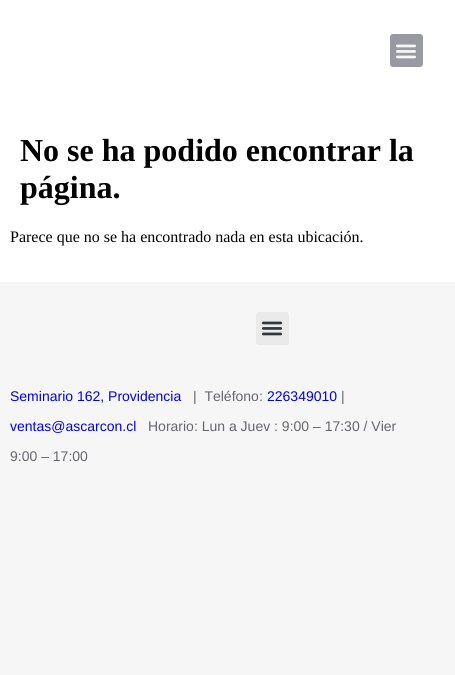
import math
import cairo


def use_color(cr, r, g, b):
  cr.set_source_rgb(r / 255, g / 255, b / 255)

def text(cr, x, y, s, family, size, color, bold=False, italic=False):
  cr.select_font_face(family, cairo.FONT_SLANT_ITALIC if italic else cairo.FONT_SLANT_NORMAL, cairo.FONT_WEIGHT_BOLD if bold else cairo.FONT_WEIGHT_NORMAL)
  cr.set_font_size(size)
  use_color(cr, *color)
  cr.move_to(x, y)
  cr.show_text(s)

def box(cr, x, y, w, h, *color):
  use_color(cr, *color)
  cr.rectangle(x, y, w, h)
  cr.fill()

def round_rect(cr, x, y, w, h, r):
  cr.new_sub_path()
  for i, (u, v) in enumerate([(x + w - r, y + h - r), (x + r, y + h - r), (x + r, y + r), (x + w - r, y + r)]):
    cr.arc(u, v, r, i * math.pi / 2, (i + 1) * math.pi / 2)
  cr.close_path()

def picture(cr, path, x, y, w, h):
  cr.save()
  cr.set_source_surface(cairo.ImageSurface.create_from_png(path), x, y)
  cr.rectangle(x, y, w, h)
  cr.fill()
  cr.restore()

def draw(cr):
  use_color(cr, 255, 255, 255)
  cr.paint()
  use_color(cr, 153, 153, 161)
  round_rect(cr, 390, 34, 33, 33, 3)
  cr.fill()
  picture(cr, "img_01.png", 396, 44, 20, 15)
  box(cr, 0, 282, 455, 393, 246, 246, 246)
  use_color(cr, 234, 234, 234)
  round_rect(cr, 256, 312, 33, 33, 3)
  cr.fill()
  picture(cr, "img_02.png", 261, 321, 22, 15)
  text(cr, 20, 161, "No se ha podido encontrar la", "Liberation Serif", 32, (0, 0, 0), bold=True)
  text(cr, 20, 198, "página.", "Liberation Serif", 32, (0, 0, 0), bold=True)
  text(cr, 10, 242, "Parece que no se ha encontrado nada en esta ubicación.", "Liberation Serif", 16, (0, 0, 0))
  text(cr, 10, 401, "Seminario 162, Providencia", "Liberation Sans", 14, (0, 0, 238))
  text(cr, 193, 401, "|  Teléfono:", "Liberation Sans", 14, (102, 102, 110))
  text(cr, 267, 401, "226349010", "Liberation Sans", 14, (0, 0, 238))
  text(cr, 341, 401, "|", "Liberation Sans", 14, (102, 102, 110))
  text(cr, 10, 431, "ventas@ascarcon.cl", "Liberation Sans", 14, (0, 0, 238))
  text(cr, 148, 431, "Horario: Lun a Juev : 9:00 – 17:30 / Vier", "Liberation Sans", 14, (102, 102, 110))
  text(cr, 10, 461, "9:00 – 17:00", "Liberation Sans", 14, (102, 102, 110))


surface = cairo.ImageSurface(cairo.FORMAT_RGB24, 455, 675)
cr = cairo.Context(surface)
options = cairo.FontOptions()
options.set_hint_metrics(cairo.HINT_METRICS_OFF)
options.set_hint_style(cairo.HINT_STYLE_NONE)
cr.set_font_options(options)
cr.set_miter_limit(4)
draw(cr)
surface.write_to_png("out.png")
